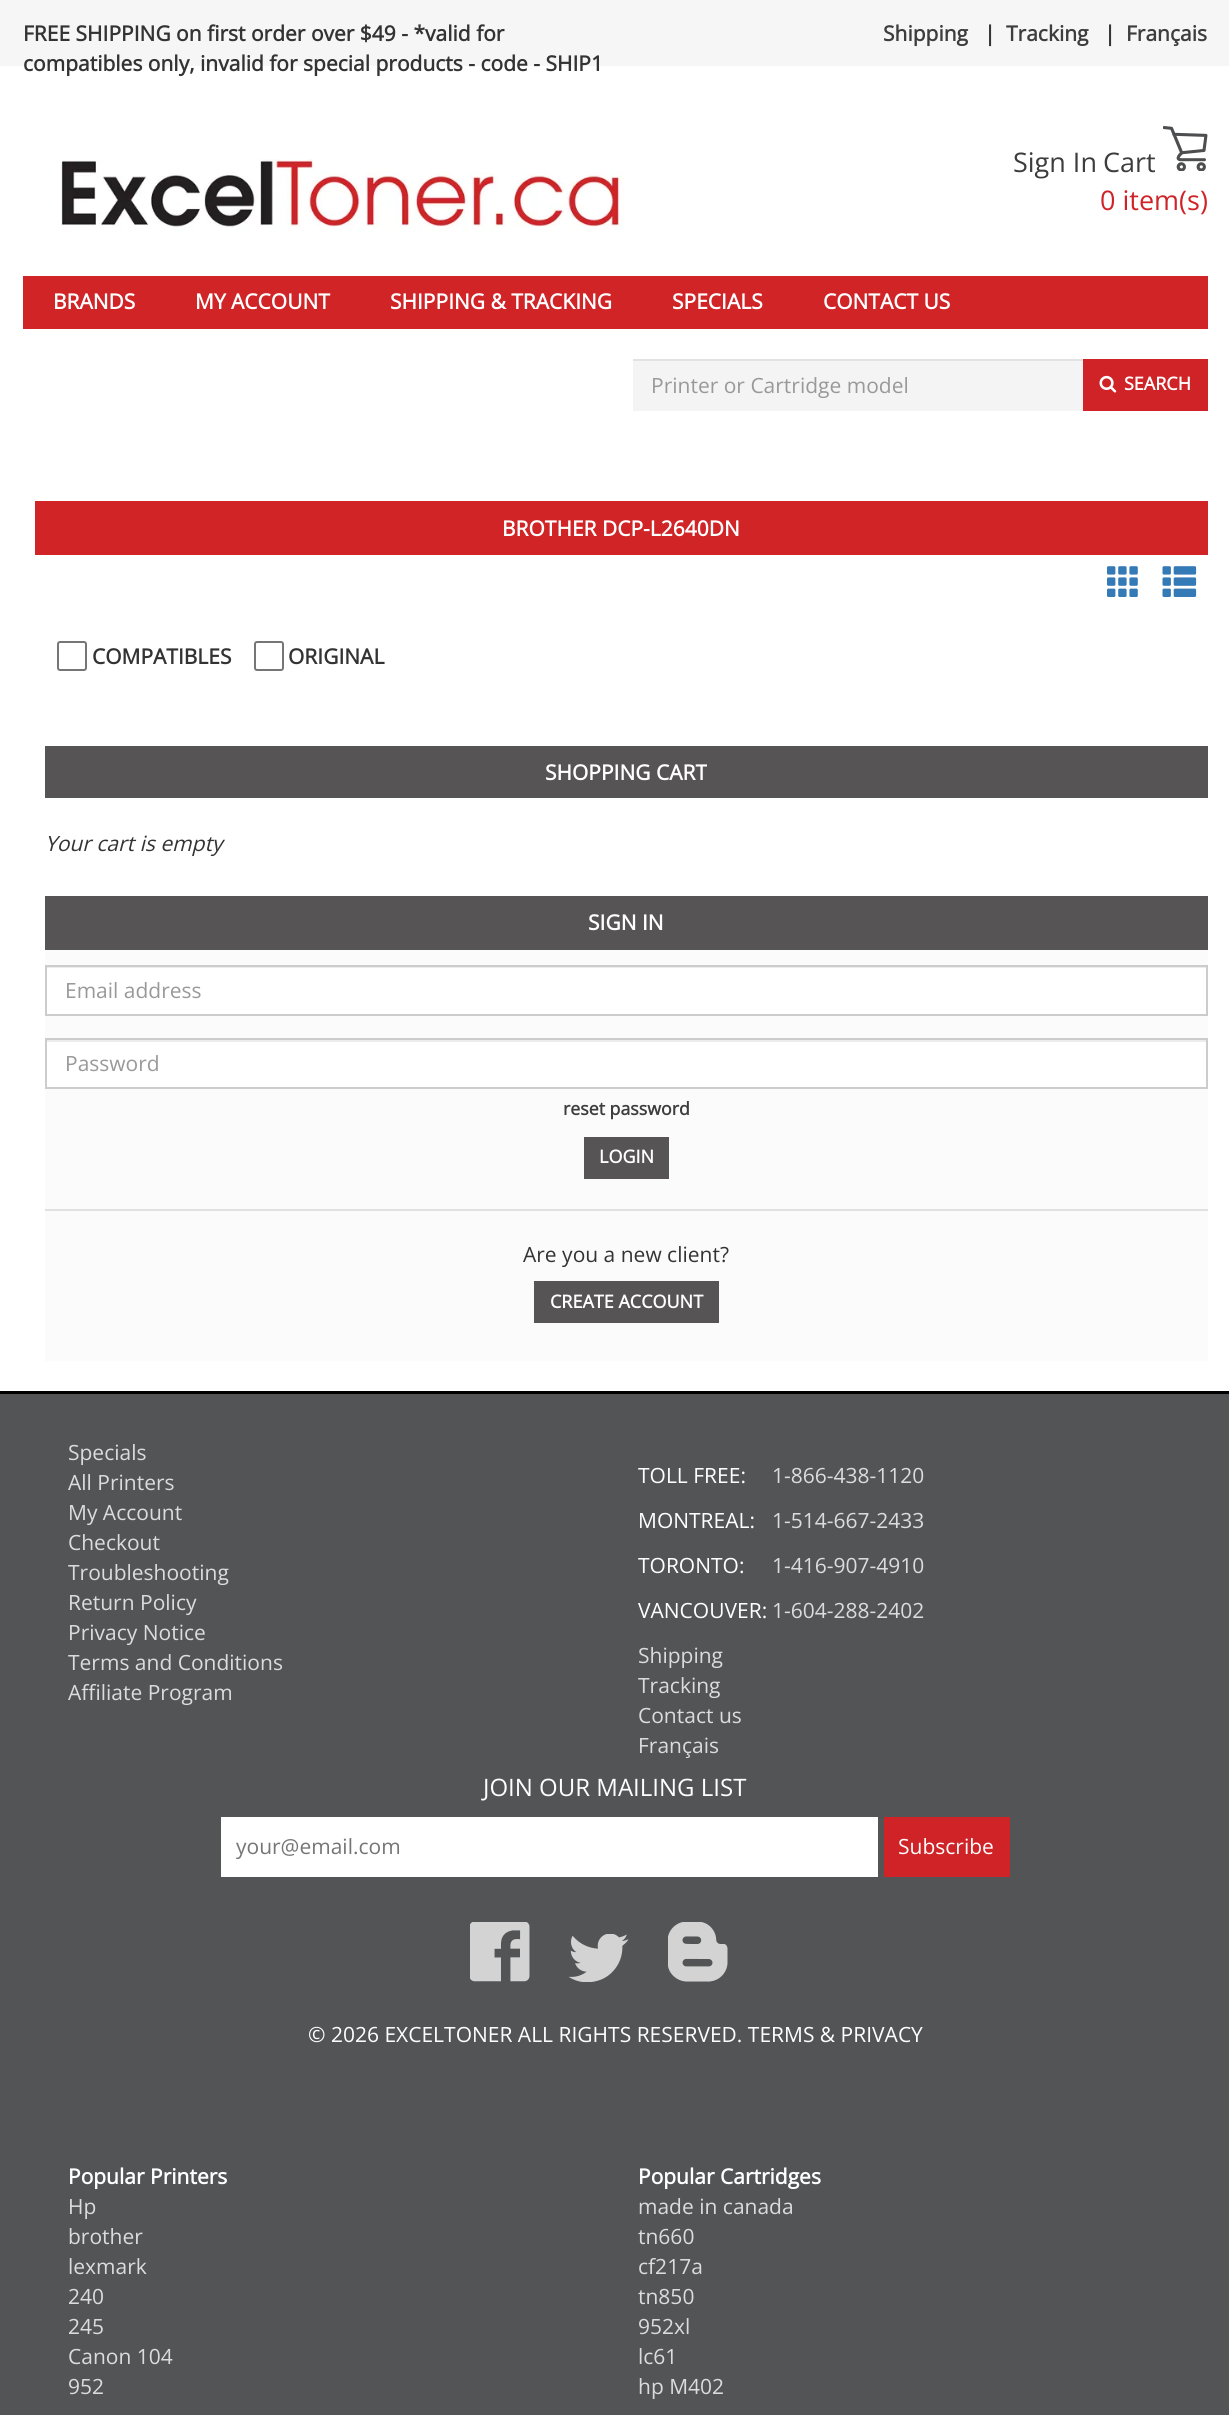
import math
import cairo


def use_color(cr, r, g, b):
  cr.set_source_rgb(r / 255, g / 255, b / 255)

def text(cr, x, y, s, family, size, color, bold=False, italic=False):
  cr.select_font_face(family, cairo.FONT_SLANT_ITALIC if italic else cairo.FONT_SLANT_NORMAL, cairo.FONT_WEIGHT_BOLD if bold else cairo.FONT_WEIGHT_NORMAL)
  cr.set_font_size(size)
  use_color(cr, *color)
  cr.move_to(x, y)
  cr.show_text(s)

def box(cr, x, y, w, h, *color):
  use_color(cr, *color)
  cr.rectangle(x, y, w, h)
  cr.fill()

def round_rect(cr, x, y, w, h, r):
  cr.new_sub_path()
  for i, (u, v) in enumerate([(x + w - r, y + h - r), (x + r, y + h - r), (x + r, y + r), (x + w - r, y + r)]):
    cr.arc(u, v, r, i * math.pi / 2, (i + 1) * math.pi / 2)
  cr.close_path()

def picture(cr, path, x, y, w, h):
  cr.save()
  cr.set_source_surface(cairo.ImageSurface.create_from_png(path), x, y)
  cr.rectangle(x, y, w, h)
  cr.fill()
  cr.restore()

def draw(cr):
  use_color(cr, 255, 255, 255)
  cr.paint()
  box(cr, 0, 0, 1229, 66, 246, 246, 247)
  picture(cr, "img_01.png", 61, 159, 563, 73)
  picture(cr, "img_02.png", 1163, 126, 45, 45)
  box(cr, 23, 276, 1185, 53, 208, 36, 39)
  box(cr, 633, 361, 450, 50, 244, 244, 244)
  box(cr, 633, 359, 450, 2, 226, 226, 226)
  box(cr, 1083, 359, 125, 52, 207, 35, 39)
  picture(cr, "img_03.png", 1099, 375, 18, 18)
  box(cr, 35, 501, 1173, 54, 208, 36, 39)
  picture(cr, "img_04.png", 1107, 566, 31, 31)
  picture(cr, "img_05.png", 1162, 566, 35, 31)
  round_rect(cr, 58, 642, 28, 28, 2)
  use_color(cr, 118, 118, 118)
  cr.stroke()
  round_rect(cr, 255, 642, 28, 28, 2)
  cr.stroke()
  box(cr, 45, 746, 1163, 52, 86, 84, 84)
  box(cr, 45, 896, 1163, 54, 86, 84, 84)
  box(cr, 45, 950, 1163, 411, 251, 251, 251)
  box(cr, 47, 968, 1159, 46, 255, 255, 255)
  box(cr, 47, 967, 1159, 1, 236, 236, 236)
  cr.rectangle(46, 966, 1161, 49)
  use_color(cr, 204, 204, 204)
  cr.stroke()
  box(cr, 47, 1042, 1159, 45, 255, 255, 255)
  box(cr, 47, 1040, 1159, 2, 236, 236, 236)
  cr.rectangle(46, 1039, 1161, 49)
  use_color(cr, 204, 204, 204)
  cr.stroke()
  box(cr, 584, 1137, 85, 42, 86, 84, 84)
  box(cr, 45, 1209, 1163, 2, 225, 225, 225)
  box(cr, 534, 1281, 185, 42, 86, 84, 84)
  box(cr, 0, 1394, 1229, 1021, 83, 84, 86)
  box(cr, 0, 1391, 1229, 3, 0, 0, 0)
  box(cr, 221, 1817, 657, 60, 255, 255, 255)
  box(cr, 884, 1817, 126, 60, 207, 35, 39)
  picture(cr, "img_06.png", 470, 1922, 60, 60)
  picture(cr, "img_07.png", 569, 1934, 60, 48)
  picture(cr, "img_08.png", 668, 1922, 60, 60)
  text(cr, 23, 41, "FREE SHIPPING on first order over $49 - *valid for", "Open Sans", 21, (51, 51, 51), bold=True)
  text(cr, 23, 71, "compatibles only, invalid for special products - code - SHIP1", "Open Sans", 21, (51, 51, 51), bold=True)
  text(cr, 883, 41, "Shipping", "Open Sans", 21, (61, 61, 61), bold=True)
  text(cr, 984, 41, "|", "Open Sans", 21, (51, 51, 51), bold=True)
  text(cr, 1006, 41, "Tracking", "Open Sans", 21, (61, 61, 61), bold=True)
  text(cr, 1104, 41, "|", "Open Sans", 21, (51, 51, 51), bold=True)
  text(cr, 1126, 41, "Français", "Open Sans", 21, (61, 61, 61), bold=True)
  text(cr, 1013, 172, "Sign In", "Open Sans", 27, (61, 61, 61))
  text(cr, 1103, 172, "Cart", "Open Sans", 27, (61, 61, 61))
  text(cr, 1100, 210, "0 item(s)", "Open Sans", 27, (207, 35, 39))
  text(cr, 53, 309, "BRANDS", "Open Sans", 21, (255, 255, 255), bold=True)
  text(cr, 195, 309, "MY ACCOUNT", "Open Sans", 21, (255, 255, 255), bold=True)
  text(cr, 390, 309, "SHIPPING & TRACKING", "Open Sans", 21, (255, 255, 255), bold=True)
  text(cr, 672, 309, "SPECIALS", "Open Sans", 21, (255, 255, 255), bold=True)
  text(cr, 823, 309, "CONTACT US", "Open Sans", 21, (255, 255, 255), bold=True)
  text(cr, 651, 393, "Printer or Cartridge model", "Open Sans", 21, (153, 153, 153))
  text(cr, 1124, 390, "SEARCH", "Open Sans", 18, (255, 255, 255), bold=True)
  text(cr, 502, 536, "BROTHER DCP-L2640DN", "Open Sans", 21, (255, 255, 255), bold=True)
  text(cr, 92, 664, "COMPATIBLES", "Open Sans", 21, (51, 51, 51), bold=True)
  text(cr, 288, 664, "ORIGINAL", "Open Sans", 21, (51, 51, 51), bold=True)
  text(cr, 545, 780, "SHOPPING CART", "Open Sans", 21, (255, 255, 255), bold=True)
  text(cr, 45, 851, "Your cart is empty", "Open Sans", 21, (51, 51, 51), italic=True)
  text(cr, 588, 930, "SIGN IN", "Open Sans", 21, (255, 255, 255), bold=True)
  text(cr, 65, 998, "Email address", "Open Sans", 21, (153, 153, 153))
  text(cr, 65, 1071, "Password", "Open Sans", 21, (153, 153, 153))
  text(cr, 563, 1115, "reset password", "Open Sans", 17.75, (61, 61, 61), bold=True)
  text(cr, 599, 1163, "LOGIN", "Open Sans", 18, (255, 255, 255), bold=True)
  text(cr, 523, 1262, "Are you a new client?", "Open Sans", 21, (51, 51, 51))
  text(cr, 550, 1308, "CREATE ACCOUNT", "Open Sans", 18, (255, 255, 255), bold=True)
  text(cr, 68, 1460, "Specials", "Open Sans", 21, (220, 220, 220))
  text(cr, 68, 1490, "All Printers", "Open Sans", 21, (220, 220, 220))
  text(cr, 68, 1520, "My Account", "Open Sans", 21, (220, 220, 220))
  text(cr, 68, 1550, "Checkout", "Open Sans", 21, (220, 220, 220))
  text(cr, 68, 1580, "Troubleshooting", "Open Sans", 21, (220, 220, 220))
  text(cr, 68, 1610, "Return Policy", "Open Sans", 21, (220, 220, 220))
  text(cr, 68, 1640, "Privacy Notice", "Open Sans", 21, (220, 220, 220))
  text(cr, 68, 1670, "Terms and Conditions", "Open Sans", 21, (220, 220, 220))
  text(cr, 68, 1700, "Affiliate Program", "Open Sans", 21, (220, 220, 220))
  text(cr, 638, 1483, "TOLL FREE:", "Open Sans", 21, (255, 255, 255))
  text(cr, 772, 1483, "1-866-438-1120", "Open Sans", 21, (220, 220, 220))
  text(cr, 638, 1528, "MONTREAL:", "Open Sans", 21, (255, 255, 255))
  text(cr, 772, 1528, "1-514-667-2433", "Open Sans", 21, (220, 220, 220))
  text(cr, 638, 1573, "TORONTO:", "Open Sans", 21, (255, 255, 255))
  text(cr, 772, 1573, "1-416-907-4910", "Open Sans", 21, (220, 220, 220))
  text(cr, 638, 1618, "VANCOUVER:", "Open Sans", 21, (255, 255, 255))
  text(cr, 772, 1618, "1-604-288-2402", "Open Sans", 21, (220, 220, 220))
  text(cr, 638, 1663, "Shipping", "Open Sans", 21, (220, 220, 220))
  text(cr, 638, 1693, "Tracking", "Open Sans", 21, (220, 220, 220))
  text(cr, 638, 1723, "Contact us", "Open Sans", 21, (220, 220, 220))
  text(cr, 638, 1753, "Français", "Open Sans", 21, (220, 220, 220))
  text(cr, 483, 1796, "JOIN OUR MAILING LIST", "Open Sans", 24, (255, 255, 255))
  text(cr, 236, 1854, "your@email.com", "Open Sans", 21, (117, 117, 117))
  text(cr, 898, 1854, "Subscribe", "Open Sans", 21, (255, 255, 255))
  text(cr, 308, 2042, "© 2026 EXCELTONER ALL RIGHTS RESERVED. TERMS & PRIVACY", "Open Sans", 21, (255, 255, 255))
  text(cr, 68, 2184, "Popular Printers", "Open Sans", 21, (255, 255, 255), bold=True)
  text(cr, 68, 2214, "Hp", "Open Sans", 21, (220, 220, 220))
  text(cr, 68, 2244, "brother", "Open Sans", 21, (220, 220, 220))
  text(cr, 68, 2274, "lexmark", "Open Sans", 21, (220, 220, 220))
  text(cr, 68, 2304, "240", "Open Sans", 21, (220, 220, 220))
  text(cr, 68, 2334, "245", "Open Sans", 21, (220, 220, 220))
  text(cr, 68, 2364, "Canon 104", "Open Sans", 21, (220, 220, 220))
  text(cr, 68, 2394, "952", "Open Sans", 21, (220, 220, 220))
  text(cr, 638, 2184, "Popular Cartridges", "Open Sans", 21, (255, 255, 255), bold=True)
  text(cr, 638, 2214, "made in canada", "Open Sans", 21, (220, 220, 220))
  text(cr, 638, 2244, "tn660", "Open Sans", 21, (220, 220, 220))
  text(cr, 638, 2274, "cf217a", "Open Sans", 21, (220, 220, 220))
  text(cr, 638, 2304, "tn850", "Open Sans", 21, (220, 220, 220))
  text(cr, 638, 2334, "952xl", "Open Sans", 21, (220, 220, 220))
  text(cr, 638, 2364, "lc61", "Open Sans", 21, (220, 220, 220))
  text(cr, 638, 2394, "hp M402", "Open Sans", 21, (220, 220, 220))


surface = cairo.ImageSurface(cairo.FORMAT_RGB24, 1229, 2415)
cr = cairo.Context(surface)
options = cairo.FontOptions()
options.set_hint_metrics(cairo.HINT_METRICS_OFF)
options.set_hint_style(cairo.HINT_STYLE_NONE)
cr.set_font_options(options)
cr.set_miter_limit(4)
draw(cr)
surface.write_to_png("out.png")
